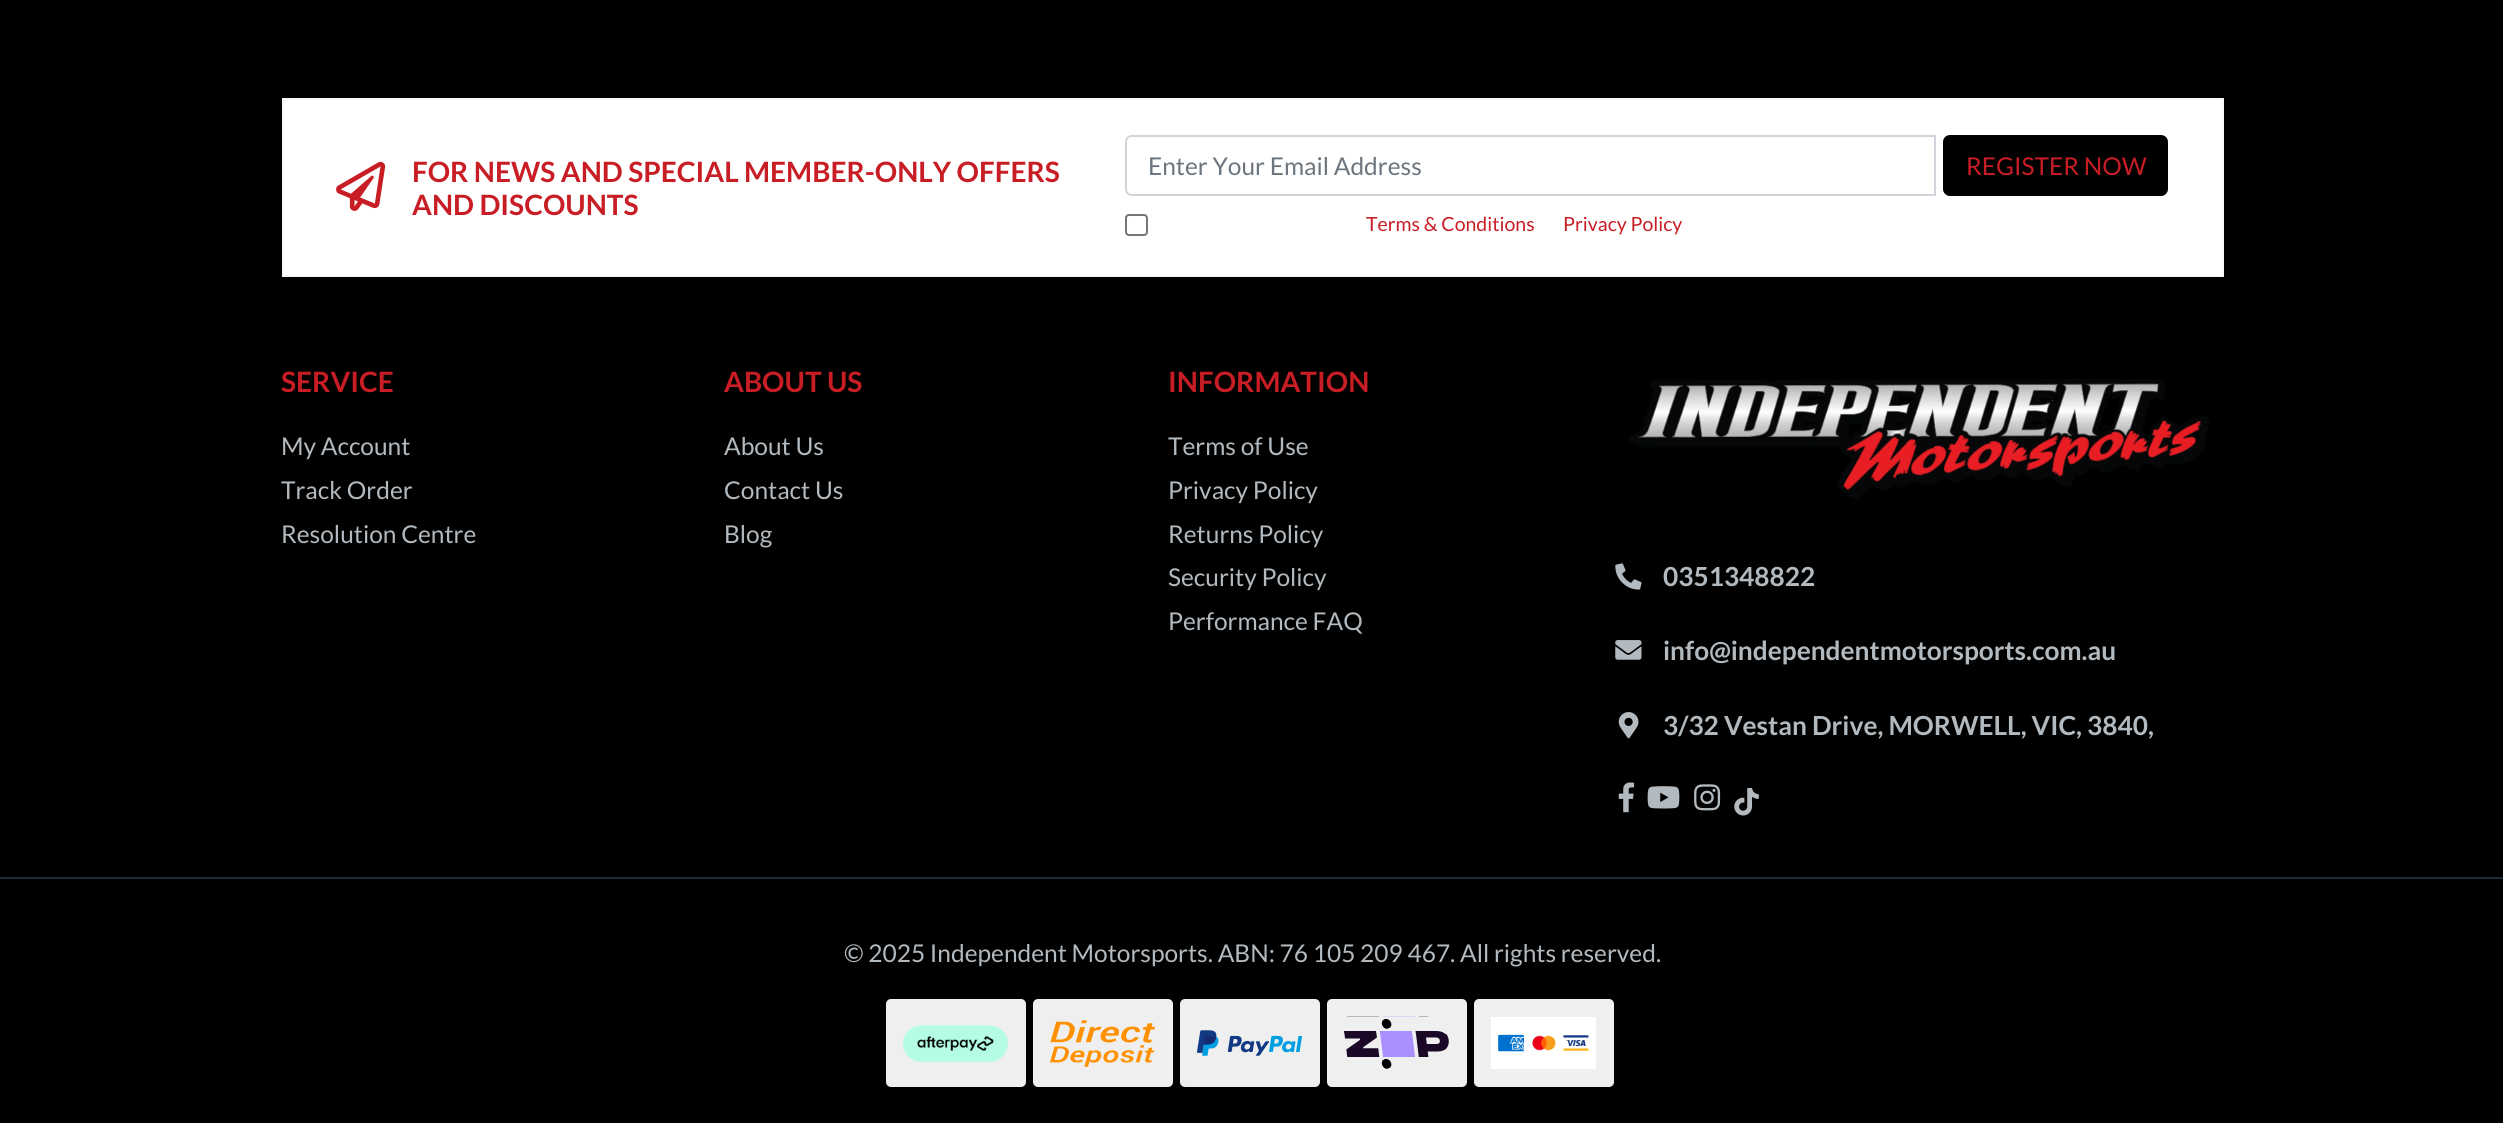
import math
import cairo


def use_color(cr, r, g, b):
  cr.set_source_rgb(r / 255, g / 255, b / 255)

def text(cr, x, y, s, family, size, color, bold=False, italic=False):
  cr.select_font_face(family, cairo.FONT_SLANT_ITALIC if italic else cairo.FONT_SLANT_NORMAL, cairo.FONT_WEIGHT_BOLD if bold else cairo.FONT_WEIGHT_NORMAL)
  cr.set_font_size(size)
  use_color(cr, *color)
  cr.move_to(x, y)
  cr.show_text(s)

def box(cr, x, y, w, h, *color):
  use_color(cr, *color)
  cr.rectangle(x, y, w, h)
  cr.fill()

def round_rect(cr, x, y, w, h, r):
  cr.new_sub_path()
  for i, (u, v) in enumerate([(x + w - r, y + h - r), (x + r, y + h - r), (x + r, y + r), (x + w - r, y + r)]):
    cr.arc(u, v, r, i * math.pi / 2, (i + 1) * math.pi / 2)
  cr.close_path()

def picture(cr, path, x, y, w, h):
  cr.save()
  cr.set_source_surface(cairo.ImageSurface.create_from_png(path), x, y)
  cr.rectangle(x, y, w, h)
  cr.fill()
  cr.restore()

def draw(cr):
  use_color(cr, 0, 0, 0)
  cr.paint()
  use_color(cr, 255, 255, 255)
  cr.rectangle(283, 99, 1940, 177)
  cr.fill_preserve()
  use_color(cr, 247, 247, 247)
  cr.stroke()
  picture(cr, "img_01.png", 336, 161, 50, 50)
  cr.new_path()
  cr.move_to(1132, 136)
  cr.line_to(1935, 136)
  cr.line_to(1935, 195)
  cr.line_to(1132, 195)
  cr.curve_to(1128.5, 195, 1126, 192.5, 1126, 189)
  cr.line_to(1126, 142)
  cr.curve_to(1126, 138.5, 1128.5, 136, 1132, 136)
  cr.close_path()
  use_color(cr, 206, 212, 218)
  cr.stroke()
  use_color(cr, 0, 0, 0)
  round_rect(cr, 1944, 136, 223, 59, 6)
  cr.fill_preserve()
  cr.stroke()
  round_rect(cr, 1126, 215, 21, 20, 3)
  use_color(cr, 118, 118, 118)
  cr.stroke()
  picture(cr, "img_02.png", 1629, 379, 581, 120)
  picture(cr, "img_03.png", 1615, 563, 27, 27)
  picture(cr, "img_04.png", 1615, 640, 27, 20)
  picture(cr, "img_05.png", 1618, 712, 21, 27)
  picture(cr, "img_06.png", 1618, 782, 17, 31)
  picture(cr, "img_07.png", 1647, 786, 33, 23)
  picture(cr, "img_08.png", 1694, 784, 27, 27)
  picture(cr, "img_09.png", 1734, 788, 25, 28)
  box(cr, 0, 877, 2503, 2, 28, 44, 54)
  use_color(cr, 239, 239, 239)
  round_rect(cr, 886, 999, 140, 88, 5)
  cr.fill()
  picture(cr, "img_10.png", 903, 1025, 105, 37)
  round_rect(cr, 1033, 999, 140, 88, 5)
  cr.fill()
  picture(cr, "img_11.png", 1050, 1020, 105, 47)
  round_rect(cr, 1180, 999, 140, 88, 5)
  cr.fill()
  picture(cr, "img_12.png", 1197, 1030, 105, 26)
  round_rect(cr, 1327, 999, 140, 88, 5)
  cr.fill()
  picture(cr, "img_13.png", 1344, 1016, 105, 53)
  round_rect(cr, 1474, 999, 140, 88, 5)
  cr.fill()
  picture(cr, "img_14.png", 1491, 1017, 105, 52)
  text(cr, 412, 182, "FOR NEWS AND SPECIAL MEMBER-ONLY OFFERS", "Lato", 28, (200, 29, 36), bold=True)
  text(cr, 412, 215, "AND DISCOUNTS", "Lato", 28, (200, 29, 36), bold=True)
  text(cr, 1148, 175, "Enter Your Email Address", "Lato", 24.5, (108, 117, 125))
  text(cr, 1966, 175, "REGISTER NOW", "Lato", 24.5, (200, 29, 36))
  text(cr, 1366, 231, "Terms & Conditions", "Lato", 19.5, (200, 29, 36))
  text(cr, 1563, 231, "Privacy Policy", "Lato", 19.5, (200, 29, 36))
  text(cr, 281, 392, "SERVICE", "Lato", 28, (200, 29, 36), bold=True)
  text(cr, 281, 455, "My Account", "Lato", 24.5, (179, 186, 191))
  text(cr, 281, 499, "Track Order", "Lato", 24.5, (179, 186, 191))
  text(cr, 281, 543, "Resolution Centre", "Lato", 24.5, (179, 186, 191))
  text(cr, 724, 392, "ABOUT US", "Lato", 28, (200, 29, 36), bold=True)
  text(cr, 724, 455, "About Us", "Lato", 24.5, (179, 186, 191))
  text(cr, 724, 499, "Contact Us", "Lato", 24.5, (179, 186, 191))
  text(cr, 724, 543, "Blog", "Lato", 24.5, (179, 186, 191))
  text(cr, 1168, 392, "INFORMATION", "Lato", 28, (200, 29, 36), bold=True)
  text(cr, 1168, 455, "Terms of Use", "Lato", 24.5, (179, 186, 191))
  text(cr, 1168, 499, "Privacy Policy", "Lato", 24.5, (179, 186, 191))
  text(cr, 1168, 543, "Returns Policy", "Lato", 24.5, (179, 186, 191))
  text(cr, 1168, 586, "Security Policy", "Lato", 24.5, (179, 186, 191))
  text(cr, 1168, 630, "Performance FAQ", "Lato", 24.5, (179, 186, 191))
  text(cr, 1663, 586, "0351348822", "Lato", 26.25, (179, 186, 191), bold=True)
  text(cr, 1663, 660, "info@independentmotorsports.com.au", "Lato", 26.25, (179, 186, 191), bold=True)
  text(cr, 1663, 735, "3/32 Vestan Drive, MORWELL, VIC, 3840,", "Lato", 26.25, (179, 186, 191), bold=True)
  text(cr, 844, 962, "© 2025 Independent Motorsports. ABN: 76 105 209 467. All rights reserved.", "Lato", 24.5, (179, 186, 191))


surface = cairo.ImageSurface(cairo.FORMAT_RGB24, 2503, 1123)
cr = cairo.Context(surface)
options = cairo.FontOptions()
options.set_hint_metrics(cairo.HINT_METRICS_OFF)
options.set_hint_style(cairo.HINT_STYLE_NONE)
cr.set_font_options(options)
cr.set_miter_limit(4)
draw(cr)
surface.write_to_png("out.png")
